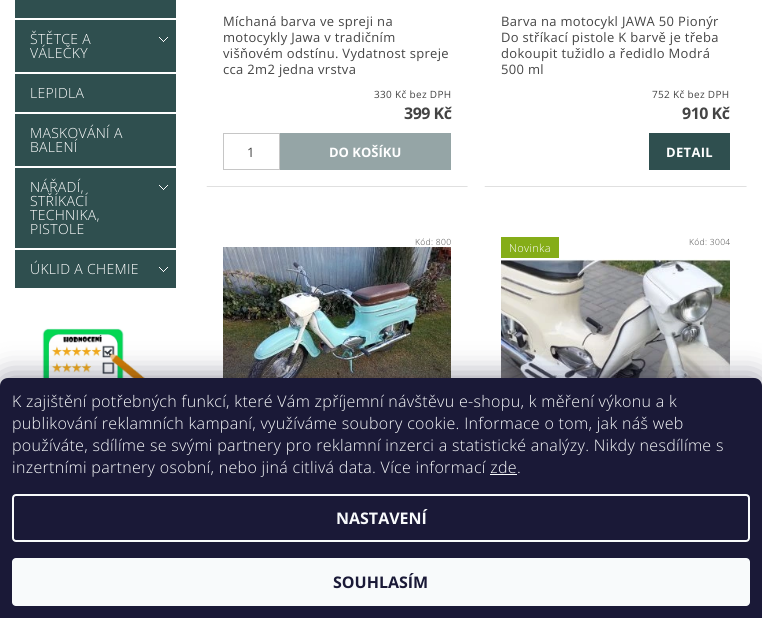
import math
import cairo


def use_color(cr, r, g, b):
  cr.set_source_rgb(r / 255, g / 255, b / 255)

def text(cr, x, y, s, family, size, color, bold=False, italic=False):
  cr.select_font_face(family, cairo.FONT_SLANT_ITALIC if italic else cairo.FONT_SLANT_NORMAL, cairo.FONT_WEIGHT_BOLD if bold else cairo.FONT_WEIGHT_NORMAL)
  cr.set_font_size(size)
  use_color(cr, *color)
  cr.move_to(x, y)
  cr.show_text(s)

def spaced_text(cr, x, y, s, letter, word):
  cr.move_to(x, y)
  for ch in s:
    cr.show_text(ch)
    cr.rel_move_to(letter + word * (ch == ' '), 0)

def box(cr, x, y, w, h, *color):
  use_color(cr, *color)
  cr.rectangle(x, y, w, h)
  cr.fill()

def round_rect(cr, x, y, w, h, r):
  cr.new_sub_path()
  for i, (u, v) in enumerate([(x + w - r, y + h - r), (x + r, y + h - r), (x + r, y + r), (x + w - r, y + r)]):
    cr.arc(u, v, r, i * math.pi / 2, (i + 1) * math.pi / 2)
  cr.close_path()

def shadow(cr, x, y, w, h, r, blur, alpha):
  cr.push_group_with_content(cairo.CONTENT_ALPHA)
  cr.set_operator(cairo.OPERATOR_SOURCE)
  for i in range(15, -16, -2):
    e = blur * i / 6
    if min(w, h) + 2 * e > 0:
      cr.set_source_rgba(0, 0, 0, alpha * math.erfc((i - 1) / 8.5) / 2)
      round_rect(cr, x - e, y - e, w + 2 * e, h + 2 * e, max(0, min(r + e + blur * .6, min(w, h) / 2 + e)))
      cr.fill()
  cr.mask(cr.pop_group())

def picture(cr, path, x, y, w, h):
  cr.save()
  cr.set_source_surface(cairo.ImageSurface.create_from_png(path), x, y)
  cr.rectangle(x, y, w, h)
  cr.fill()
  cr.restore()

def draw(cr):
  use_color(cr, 255, 255, 255)
  cr.paint()
  box(cr, 15, 0, 161, 18, 47, 79, 79)
  box(cr, 15, 20, 161, 52, 47, 79, 79)
  picture(cr, "img_01.png", 159, 37, 9, 5)
  box(cr, 15, 74, 161, 38, 47, 79, 79)
  box(cr, 15, 114, 161, 52, 47, 79, 79)
  box(cr, 15, 168, 161, 80, 47, 79, 79)
  picture(cr, "img_01.png", 159, 185, 9, 5)
  box(cr, 15, 250, 161, 38, 47, 79, 79)
  picture(cr, "img_01.png", 159, 267, 9, 5)
  picture(cr, "img_02.png", 42, 328, 109, 50)
  use_color(cr, 224, 224, 224)
  cr.new_path()
  cr.move_to(468, 187)
  cr.line_to(206, 187)
  cr.line_to(208, 185)
  cr.line_to(466, 185)
  cr.close_path()
  cr.fill()
  use_color(cr, 255, 255, 255)
  cr.new_path()
  cr.move_to(206, 187)
  cr.line_to(206, -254)
  cr.line_to(208, -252)
  cr.line_to(208, 185)
  cr.close_path()
  cr.fill()
  cr.rectangle(223.5, 133.5, 56, 36)
  use_color(cr, 198, 198, 198)
  cr.set_line_width(1)
  cr.stroke()
  cr.rectangle(280.5, 133.5, 170, 36)
  use_color(cr, 149, 165, 166)
  cr.stroke()
  box(cr, 281, 134, 169, 35, 149, 165, 166)
  box(cr, 205, 185, 264, 1, 255, 255, 255)
  use_color(cr, 224, 224, 224)
  cr.new_path()
  cr.move_to(747, 187)
  cr.line_to(484, 187)
  cr.line_to(486, 185)
  cr.line_to(745, 185)
  cr.close_path()
  cr.fill()
  use_color(cr, 255, 255, 255)
  cr.new_path()
  cr.move_to(484, 187)
  cr.line_to(484, -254)
  cr.line_to(486, -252)
  cr.line_to(486, 185)
  cr.close_path()
  cr.fill()
  cr.rectangle(649.5, 133.5, 80, 36)
  use_color(cr, 47, 79, 79)
  cr.stroke()
  box(cr, 650, 134, 79, 35, 47, 79, 79)
  box(cr, 483, 185, 264, 1, 255, 255, 255)
  picture(cr, "img_03.png", 223, 247, 228, 131)
  box(cr, 501, 237, 58, 21, 133, 173, 24)
  picture(cr, "img_04.png", 501, 259, 229, 119)
  use_color(cr, 27, 25, 57)
  shadow(cr, 0, 378, 762, 240, 8, 15, 0.5)
  use_color(cr, 26, 25, 55)
  cr.new_path()
  cr.move_to(8, 378)
  cr.line_to(754, 378)
  cr.curve_to(758.5, 378, 762, 381.5, 762, 386)
  cr.line_to(762, 618)
  cr.line_to(0, 618)
  cr.line_to(0, 386)
  cr.curve_to(0, 381.5, 3.5, 378, 8, 378)
  cr.close_path()
  cr.fill()
  box(cr, 490, 474, 27, 1, 248, 250, 251)
  round_rect(cr, 13, 495, 736, 46, 3)
  cr.set_line_width(2)
  cr.stroke()
  round_rect(cr, 12, 558, 738, 48, 4)
  cr.fill()
  cr.select_font_face("Open Sans Light")
  cr.set_font_size(14)
  use_color(cr, 255, 255, 255)
  spaced_text(cr, 30, 44, "ŠTĚTCE A", 0.32, 0)
  spaced_text(cr, 30, 58, "VÁLEČKY", 0.32, 0)
  spaced_text(cr, 30, 98, "LEPIDLA", 0.32, 0)
  spaced_text(cr, 30, 138, "MASKOVÁNÍ A", 0.32, 0)
  spaced_text(cr, 30, 152, "BALENÍ", 0.32, 0)
  spaced_text(cr, 30, 192, "NÁŘADÍ,", 0.32, 0)
  spaced_text(cr, 30, 206, "STŘÍKACÍ", 0.32, 0)
  spaced_text(cr, 30, 220, "TECHNIKA,", 0.32, 0)
  spaced_text(cr, 30, 234, "PISTOLE", 0.32, 0)
  spaced_text(cr, 30, 274, "ÚKLID A CHEMIE", 0.32, 0)
  cr.select_font_face("Open Sans")
  cr.set_font_size(13)
  use_color(cr, 68, 68, 68)
  spaced_text(cr, 223, 26, "Míchaná barva ve spreji na", 0.32, 0)
  spaced_text(cr, 223, 42, "motocykly Jawa v tradičním", 0.32, 0)
  spaced_text(cr, 223, 58, "višňovém odstínu. Vydatnost spreje", 0.32, 0)
  spaced_text(cr, 223, 74, "cca 2m2 jedna vrstva", 0.32, 0)
  cr.set_font_size(10)
  spaced_text(cr, 374, 98, "330 Kč bez DPH", 0.32, 0)
  cr.select_font_face("Open Sans", cairo.FONT_SLANT_NORMAL, cairo.FONT_WEIGHT_BOLD)
  cr.set_font_size(16)
  spaced_text(cr, 404, 119, "399 Kč", -0.5, 0)
  text(cr, 247, 157, "1", "Open Sans", 13, (68, 68, 68))
  text(cr, 329, 157, "DO KOŠÍKU", "Open Sans", 13, (255, 255, 255), bold=True)
  cr.select_font_face("Open Sans")
  use_color(cr, 68, 68, 68)
  spaced_text(cr, 501, 26, "Barva na motocykl JAWA 50 Pionýr", 0.32, 0)
  spaced_text(cr, 501, 42, "Do stříkací pistole K barvě je třeba", 0.32, 0)
  spaced_text(cr, 501, 58, "dokoupit tužidlo a ředidlo Modrá", 0.32, 0)
  spaced_text(cr, 501, 74, "500 ml", 0.32, 0)
  cr.set_font_size(10)
  spaced_text(cr, 652, 98, "752 Kč bez DPH", 0.32, 0)
  cr.select_font_face("Open Sans", cairo.FONT_SLANT_NORMAL, cairo.FONT_WEIGHT_BOLD)
  cr.set_font_size(16)
  spaced_text(cr, 682, 119, "910 Kč", -0.5, 0)
  cr.set_font_size(13)
  use_color(cr, 255, 255, 255)
  spaced_text(cr, 666, 157, "DETAIL", 0.32, 0)
  cr.select_font_face("Open Sans Light")
  cr.set_font_size(8.5)
  use_color(cr, 68, 68, 68)
  spaced_text(cr, 415, 245, "Kód: 800", 0.32, 0)
  spaced_text(cr, 689, 245, "Kód: 3004", 0.32, 0)
  cr.set_font_size(11)
  use_color(cr, 255, 255, 255)
  spaced_text(cr, 509, 252, "Novinka", 0.32, 0)
  cr.set_font_size(16)
  use_color(cr, 248, 250, 251)
  spaced_text(cr, 12, 407, "K zajištění potřebných funkcí, které Vám zpříjemní návštěvu e-shopu, k měření výkonu a k", 0.32, 0)
  spaced_text(cr, 12, 429, "publikování reklamních kampaní, využíváme soubory cookie. Informace o tom, jak náš web", 0.32, 0)
  spaced_text(cr, 12, 451, "používáte, sdílíme se svými partnery pro reklamní inzerci a statistické analýzy. Nikdy nesdílíme s", 0.32, 0)
  spaced_text(cr, 12, 473, "inzertními partnery osobní, nebo jiná citlivá data. Více informací zde.", 0.32, 0)
  text(cr, 336, 524, "NASTAVENÍ", "Open Sans", 16, (248, 250, 251), bold=True)
  text(cr, 333, 588, "SOUHLASÍM", "Open Sans", 16, (26, 25, 55), bold=True)


surface = cairo.ImageSurface(cairo.FORMAT_RGB24, 762, 618)
cr = cairo.Context(surface)
options = cairo.FontOptions()
options.set_hint_metrics(cairo.HINT_METRICS_OFF)
options.set_hint_style(cairo.HINT_STYLE_NONE)
cr.set_font_options(options)
cr.set_miter_limit(4)
draw(cr)
surface.write_to_png("out.png")
